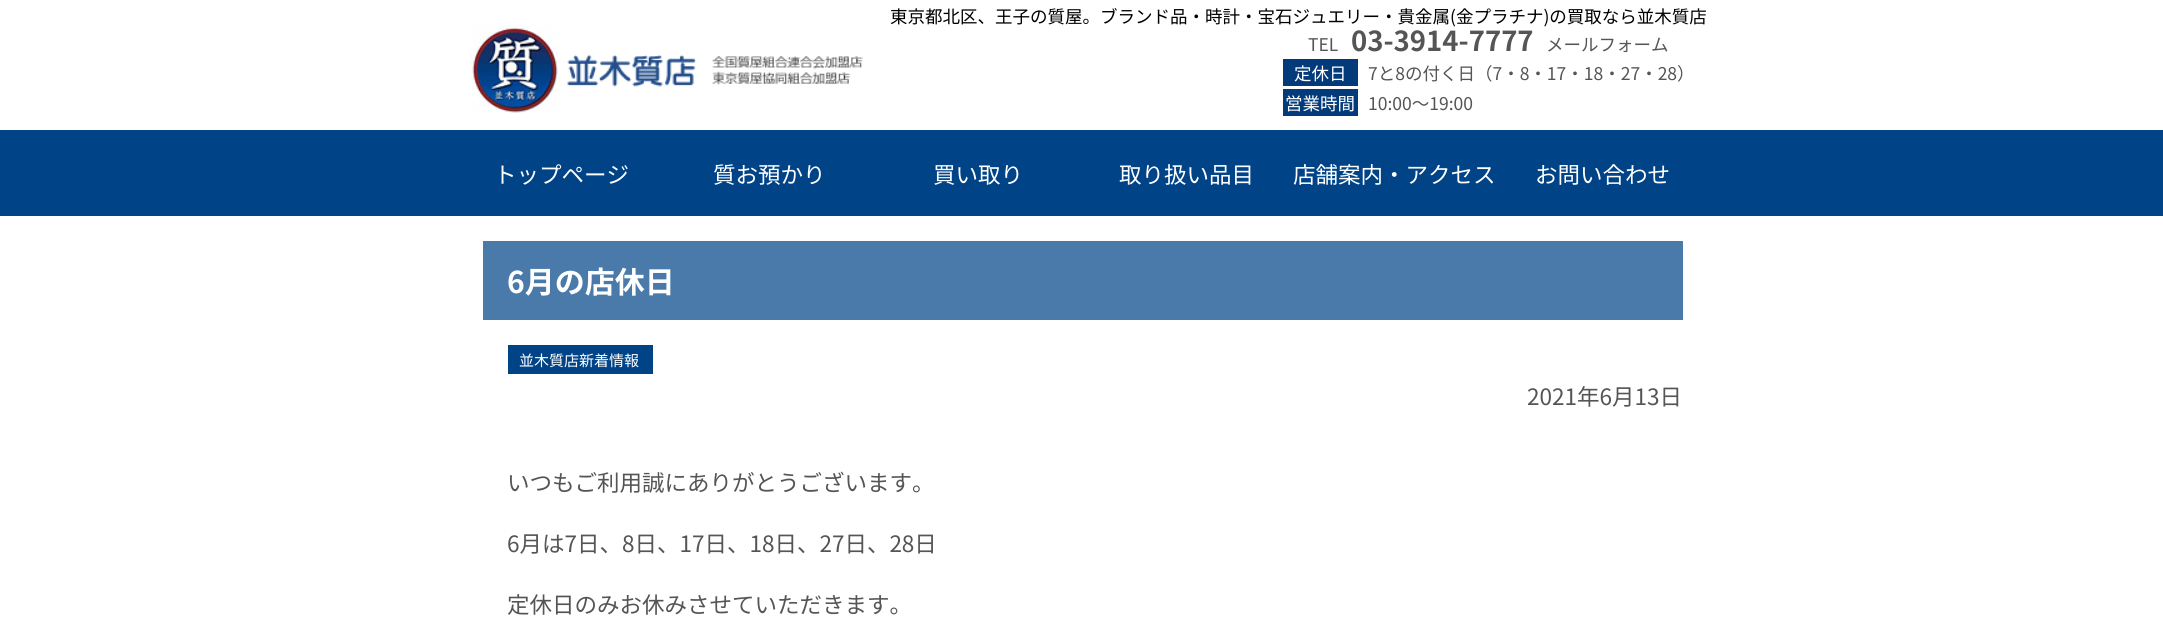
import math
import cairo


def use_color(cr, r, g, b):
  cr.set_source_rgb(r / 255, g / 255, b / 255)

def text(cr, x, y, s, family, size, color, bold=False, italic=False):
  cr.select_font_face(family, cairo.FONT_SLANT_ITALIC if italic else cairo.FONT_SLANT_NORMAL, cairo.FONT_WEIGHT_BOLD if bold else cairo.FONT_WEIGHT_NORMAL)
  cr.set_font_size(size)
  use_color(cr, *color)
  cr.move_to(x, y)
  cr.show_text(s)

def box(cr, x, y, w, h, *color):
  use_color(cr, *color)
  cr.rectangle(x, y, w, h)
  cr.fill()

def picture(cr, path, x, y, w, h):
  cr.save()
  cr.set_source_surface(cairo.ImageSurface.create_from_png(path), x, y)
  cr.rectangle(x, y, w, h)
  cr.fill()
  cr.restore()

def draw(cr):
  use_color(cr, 255, 255, 255)
  cr.paint()
  picture(cr, "img_01.png", 471, 25, 392, 88)
  box(cr, 1283, 59, 75, 27, 2, 58, 122)
  box(cr, 1283, 89, 75, 27, 2, 58, 122)
  box(cr, 0, 130, 2163, 86, 0, 67, 134)
  box(cr, 483, 241, 1200, 79, 73, 122, 170)
  box(cr, 508, 345, 145, 29, 0, 67, 134)
  text(cr, 890, 23, "東京都北区、王子の質屋。ブランド品・時計・宝石ジュエリー・貴金属(金プラチナ)の買取なら並木質店", "Noto Sans JP", 17.5, (0, 0, 0))
  text(cr, 1308, 51, "TEL", "Noto Sans JP", 17.5, (85, 85, 85))
  text(cr, 1351, 51, "03-3914-7777", "Noto Sans JP", 27.5, (85, 85, 85), bold=True)
  text(cr, 1546, 51, "メールフォーム", "Noto Sans JP", 17.5, (85, 85, 85))
  text(cr, 1294, 80, "定休日", "Noto Sans JP", 17.5, (255, 255, 255))
  text(cr, 1368, 80, "7と8の付く日（7・8・17・18・27・28）", "Noto Sans JP", 17.5, (85, 85, 85))
  text(cr, 1285, 110, "営業時間", "Noto Sans JP", 17.5, (255, 255, 255))
  text(cr, 1368, 110, "10:00～19:00", "Noto Sans JP", 17.5, (85, 85, 85))
  text(cr, 494, 183, "トップページ", "Noto Sans JP", 22.5, (255, 255, 255))
  text(cr, 713, 183, "質お預かり", "Noto Sans JP", 22.5, (255, 255, 255))
  text(cr, 933, 183, "買い取り", "Noto Sans JP", 22.5, (255, 255, 255))
  text(cr, 1119, 183, "取り扱い品目", "Noto Sans JP", 22.5, (255, 255, 255))
  text(cr, 1293, 183, "店舗案内・アクセス", "Noto Sans JP", 22.5, (255, 255, 255))
  text(cr, 1535, 183, "お問い合わせ", "Noto Sans JP", 22.5, (255, 255, 255))
  text(cr, 507, 293, "6月の店休日", "Noto Sans JP", 30, (255, 255, 255), bold=True)
  text(cr, 519, 366, "並木質店新着情報", "Noto Sans JP", 15, (255, 255, 255))
  text(cr, 1527, 405, "2021年6月13日", "Noto Sans JP", 22.5, (85, 85, 85))
  text(cr, 507, 491, "いつもご利用誠にありがとうございます。", "Noto Sans JP", 22.5, (85, 85, 85))
  text(cr, 507, 552, "6月は7日、8日、17日、18日、27日、28日", "Noto Sans JP", 22.5, (85, 85, 85))
  text(cr, 507, 613, "定休日のみお休みさせていただきます。", "Noto Sans JP", 22.5, (85, 85, 85))


surface = cairo.ImageSurface(cairo.FORMAT_RGB24, 2163, 620)
cr = cairo.Context(surface)
options = cairo.FontOptions()
options.set_hint_metrics(cairo.HINT_METRICS_OFF)
options.set_hint_style(cairo.HINT_STYLE_NONE)
cr.set_font_options(options)
cr.set_miter_limit(4)
draw(cr)
surface.write_to_png("out.png")
